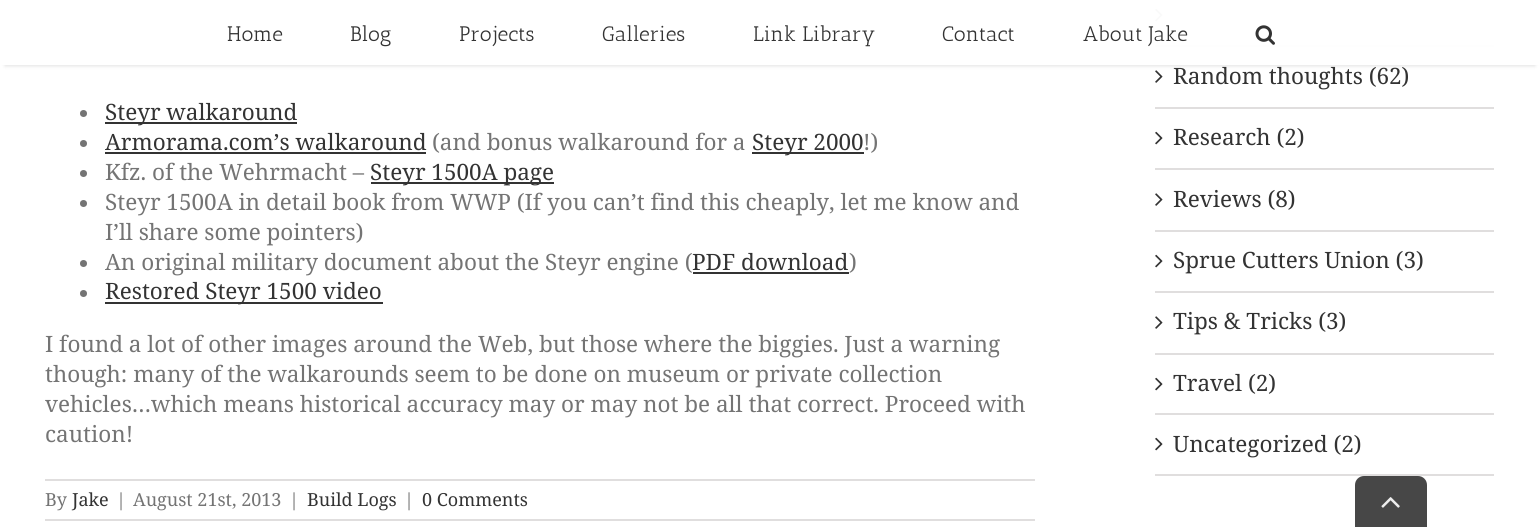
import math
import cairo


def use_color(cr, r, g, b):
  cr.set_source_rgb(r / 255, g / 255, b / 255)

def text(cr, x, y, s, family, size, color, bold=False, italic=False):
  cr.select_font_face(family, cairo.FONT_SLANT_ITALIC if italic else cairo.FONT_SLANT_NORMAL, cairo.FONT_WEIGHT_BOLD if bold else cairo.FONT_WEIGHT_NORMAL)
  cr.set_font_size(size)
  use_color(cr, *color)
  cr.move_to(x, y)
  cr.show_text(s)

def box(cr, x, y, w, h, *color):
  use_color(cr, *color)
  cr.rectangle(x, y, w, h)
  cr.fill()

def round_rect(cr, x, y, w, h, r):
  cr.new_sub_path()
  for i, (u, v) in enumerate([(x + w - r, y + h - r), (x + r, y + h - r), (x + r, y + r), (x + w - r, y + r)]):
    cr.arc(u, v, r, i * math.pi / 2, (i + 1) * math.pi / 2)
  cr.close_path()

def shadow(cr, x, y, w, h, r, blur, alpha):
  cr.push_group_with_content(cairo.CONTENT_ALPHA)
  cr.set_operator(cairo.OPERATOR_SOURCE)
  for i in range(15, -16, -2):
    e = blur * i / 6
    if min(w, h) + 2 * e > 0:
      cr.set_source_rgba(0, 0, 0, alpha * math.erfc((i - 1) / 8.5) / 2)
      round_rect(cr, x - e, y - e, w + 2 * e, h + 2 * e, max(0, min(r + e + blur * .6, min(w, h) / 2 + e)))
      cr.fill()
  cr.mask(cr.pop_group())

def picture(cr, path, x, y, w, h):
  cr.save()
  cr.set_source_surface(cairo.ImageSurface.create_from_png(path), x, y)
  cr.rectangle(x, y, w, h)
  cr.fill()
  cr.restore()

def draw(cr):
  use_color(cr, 255, 255, 255)
  cr.paint()
  box(cr, 1155, 45, 339, 2, 224, 222, 222)
  picture(cr, "img_02.png", 1155, 8, 8, 14)
  picture(cr, "img_03.png", 1155, 70, 8, 13)
  cr.save()
  cr.set_fill_rule(cairo.FILL_RULE_EVEN_ODD)
  cr.new_path()
  cr.move_to(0, 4)
  cr.line_to(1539, 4)
  cr.line_to(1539, 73)
  cr.line_to(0, 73)
  cr.close_path()
  cr.move_to(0, 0)
  cr.line_to(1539, 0)
  cr.line_to(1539, 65)
  cr.line_to(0, 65)
  cr.close_path()
  cr.clip()
  use_color(cr, 0, 0, 0)
  shadow(cr, 5, 11, 1530, 55, 0, 2, 0.12)
  cr.restore()
  cr.set_source_rgba(1, 1, 1, 0.97)
  cr.rectangle(4, 8, 1532, 57)
  cr.fill()
  picture(cr, "img_01.png", 1255, 25, 20, 20)
  use_color(cr, 116, 116, 116)
  cr.arc(83.5, 113.5, 3.5, 0, 2 * math.pi)
  cr.fill()
  box(cr, 105, 122, 192, 2, 51, 51, 51)
  use_color(cr, 116, 116, 116)
  cr.arc(83.5, 143.5, 3.5, 0, 2 * math.pi)
  cr.fill()
  box(cr, 105, 152, 321, 2, 51, 51, 51)
  box(cr, 752, 152, 112, 2, 51, 51, 51)
  use_color(cr, 116, 116, 116)
  cr.arc(83.5, 173.5, 3.5, 0, 2 * math.pi)
  cr.fill()
  box(cr, 371, 182, 183, 2, 51, 51, 51)
  use_color(cr, 116, 116, 116)
  cr.arc(83.5, 203.5, 3.5, 0, 2 * math.pi)
  cr.fill()
  cr.arc(83.5, 263.5, 3.5, 0, 2 * math.pi)
  cr.fill()
  box(cr, 693, 272, 156, 2, 51, 51, 51)
  use_color(cr, 116, 116, 116)
  cr.arc(83.5, 293.5, 3.5, 0, 2 * math.pi)
  cr.fill()
  box(cr, 105, 302, 278, 2, 51, 51, 51)
  box(cr, 45, 479, 990, 2, 224, 222, 222)
  box(cr, 45, 519, 990, 2, 224, 222, 222)
  box(cr, 1155, 107, 339, 2, 224, 222, 222)
  box(cr, 1155, 168, 339, 2, 224, 222, 222)
  picture(cr, "img_02.png", 1155, 131, 8, 14)
  box(cr, 1155, 230, 339, 2, 224, 222, 222)
  picture(cr, "img_03.png", 1155, 193, 8, 13)
  box(cr, 1155, 291, 339, 2, 224, 222, 222)
  picture(cr, "img_02.png", 1155, 254, 8, 14)
  box(cr, 1155, 353, 339, 2, 224, 222, 222)
  picture(cr, "img_03.png", 1155, 316, 8, 13)
  box(cr, 1155, 413, 339, 2, 224, 222, 222)
  picture(cr, "img_02.png", 1155, 377, 8, 14)
  box(cr, 1155, 474, 339, 2, 224, 222, 222)
  picture(cr, "img_02.png", 1155, 437, 8, 14)
  use_color(cr, 71, 71, 71)
  cr.new_path()
  cr.move_to(1364, 476)
  cr.line_to(1418, 476)
  cr.curve_to(1423, 476, 1427, 480, 1427, 485)
  cr.line_to(1427, 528)
  cr.line_to(1355, 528)
  cr.line_to(1355, 485)
  cr.curve_to(1355, 480, 1359, 476, 1364, 476)
  cr.close_path()
  cr.fill()
  picture(cr, "img_04.png", 1381, 497, 19, 11)
  text(cr, 227, 41, "Home", "Antic Slab", 21, (51, 51, 51))
  text(cr, 350, 41, "Blog", "Antic Slab", 21, (51, 51, 51))
  text(cr, 459, 41, "Projects", "Antic Slab", 21, (51, 51, 51))
  text(cr, 602, 41, "Galleries", "Antic Slab", 21, (51, 51, 51))
  text(cr, 753, 41, "Link Library", "Antic Slab", 21, (51, 51, 51))
  text(cr, 942, 41, "Contact", "Antic Slab", 21, (51, 51, 51))
  text(cr, 1083, 41, "About Jake", "Antic Slab", 21, (51, 51, 51))
  text(cr, 105, 120, "Steyr walkaround", "Noto Serif", 22.5, (51, 51, 51))
  text(cr, 105, 150, "Armorama.com’s walkaround", "Noto Serif", 22.5, (51, 51, 51))
  text(cr, 432, 150, "(and bonus walkaround for a", "Noto Serif", 22.5, (116, 116, 116))
  text(cr, 752, 150, "Steyr 2000", "Noto Serif", 22.5, (51, 51, 51))
  text(cr, 863, 150, "!)", "Noto Serif", 22.5, (116, 116, 116))
  text(cr, 105, 180, "Kfz. of the Wehrmacht –", "Noto Serif", 22.5, (116, 116, 116))
  text(cr, 370, 180, "Steyr 1500A page", "Noto Serif", 22.5, (51, 51, 51))
  text(cr, 105, 210, "Steyr 1500A in detail book from WWP (If you can’t find this cheaply, let me know and", "Noto Serif", 22.5, (116, 116, 116))
  text(cr, 105, 240, "I’ll share some pointers)", "Noto Serif", 22.5, (116, 116, 116))
  text(cr, 105, 270, "An original military document about the Steyr engine (", "Noto Serif", 22.5, (116, 116, 116))
  text(cr, 692, 270, "PDF download", "Noto Serif", 22.5, (51, 51, 51))
  text(cr, 849, 270, ")", "Noto Serif", 22.5, (116, 116, 116))
  text(cr, 105, 299, "Restored Steyr 1500 video", "Noto Serif", 22.5, (51, 51, 51))
  text(cr, 45, 352, "I found a lot of other images around the Web, but those where the biggies. Just a warning", "Noto Serif", 22.5, (116, 116, 116))
  text(cr, 45, 382, "though: many of the walkarounds seem to be done on museum or private collection", "Noto Serif", 22.5, (116, 116, 116))
  text(cr, 45, 412, "vehicles…which means historical accuracy may or may not be all that correct. Proceed with", "Noto Serif", 22.5, (116, 116, 116))
  text(cr, 45, 442, "caution!", "Noto Serif", 22.5, (116, 116, 116))
  text(cr, 45, 506, "By", "Noto Serif", 18, (116, 116, 116))
  text(cr, 72, 506, "Jake", "Noto Serif", 18, (51, 51, 51))
  text(cr, 116, 506, "|", "Noto Serif", 18, (116, 116, 116))
  text(cr, 133, 506, "August 21st, 2013", "Noto Serif", 18, (116, 116, 116))
  text(cr, 289, 506, "|", "Noto Serif", 18, (116, 116, 116))
  text(cr, 307, 506, "Build Logs", "Noto Serif", 18, (51, 51, 51))
  text(cr, 404, 506, "|", "Noto Serif", 18, (116, 116, 116))
  text(cr, 422, 506, "0 Comments", "Noto Serif", 18, (51, 51, 51))
  text(cr, 1173, 84, "Random thoughts (62)", "Noto Serif", 22.5, (51, 51, 51))
  text(cr, 1173, 145, "Research (2)", "Noto Serif", 22.5, (51, 51, 51))
  text(cr, 1173, 207, "Reviews (8)", "Noto Serif", 22.5, (51, 51, 51))
  text(cr, 1173, 268, "Sprue Cutters Union (3)", "Noto Serif", 22.5, (51, 51, 51))
  text(cr, 1173, 329, "Tips & Tricks (3)", "Noto Serif", 22.5, (51, 51, 51))
  text(cr, 1173, 391, "Travel (2)", "Noto Serif", 22.5, (51, 51, 51))
  text(cr, 1173, 452, "Uncategorized (2)", "Noto Serif", 22.5, (51, 51, 51))


surface = cairo.ImageSurface(cairo.FORMAT_RGB24, 1539, 527)
cr = cairo.Context(surface)
options = cairo.FontOptions()
options.set_hint_metrics(cairo.HINT_METRICS_OFF)
options.set_hint_style(cairo.HINT_STYLE_NONE)
cr.set_font_options(options)
cr.set_miter_limit(4)
draw(cr)
surface.write_to_png("out.png")
